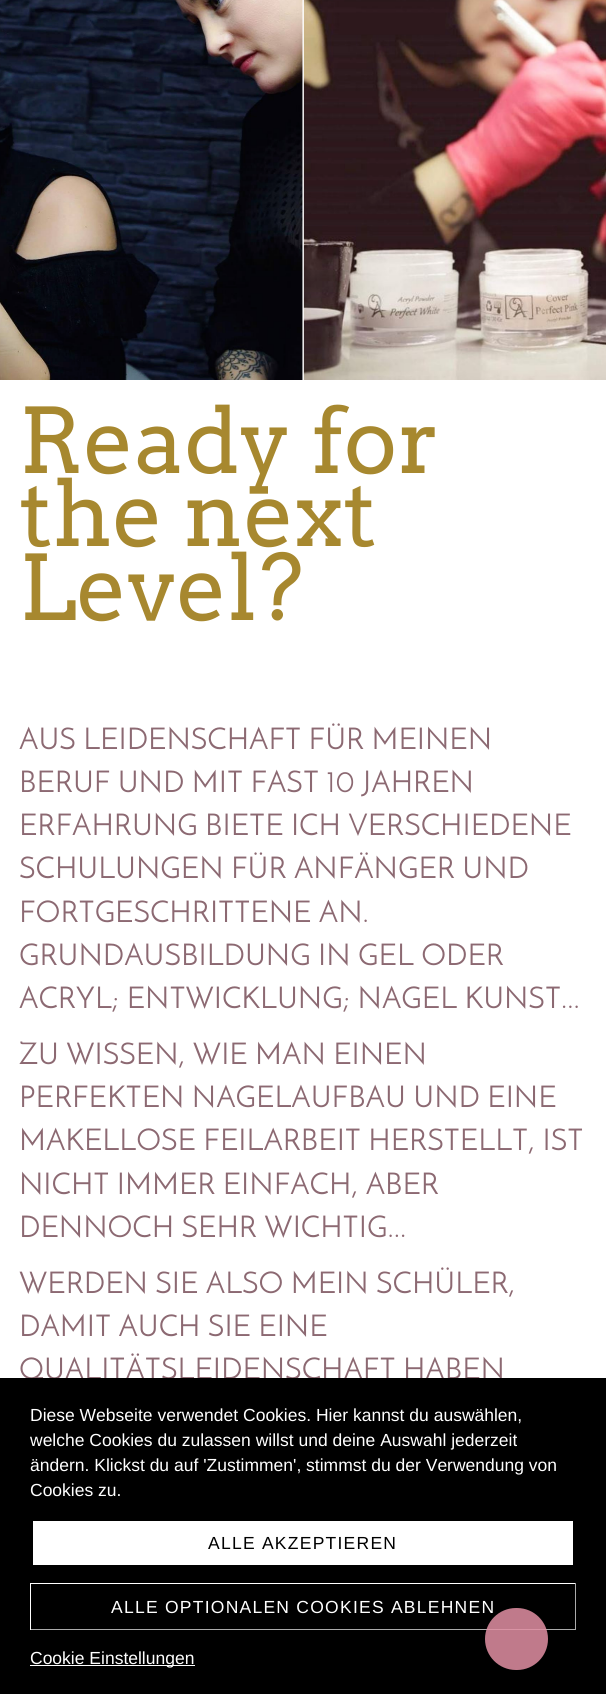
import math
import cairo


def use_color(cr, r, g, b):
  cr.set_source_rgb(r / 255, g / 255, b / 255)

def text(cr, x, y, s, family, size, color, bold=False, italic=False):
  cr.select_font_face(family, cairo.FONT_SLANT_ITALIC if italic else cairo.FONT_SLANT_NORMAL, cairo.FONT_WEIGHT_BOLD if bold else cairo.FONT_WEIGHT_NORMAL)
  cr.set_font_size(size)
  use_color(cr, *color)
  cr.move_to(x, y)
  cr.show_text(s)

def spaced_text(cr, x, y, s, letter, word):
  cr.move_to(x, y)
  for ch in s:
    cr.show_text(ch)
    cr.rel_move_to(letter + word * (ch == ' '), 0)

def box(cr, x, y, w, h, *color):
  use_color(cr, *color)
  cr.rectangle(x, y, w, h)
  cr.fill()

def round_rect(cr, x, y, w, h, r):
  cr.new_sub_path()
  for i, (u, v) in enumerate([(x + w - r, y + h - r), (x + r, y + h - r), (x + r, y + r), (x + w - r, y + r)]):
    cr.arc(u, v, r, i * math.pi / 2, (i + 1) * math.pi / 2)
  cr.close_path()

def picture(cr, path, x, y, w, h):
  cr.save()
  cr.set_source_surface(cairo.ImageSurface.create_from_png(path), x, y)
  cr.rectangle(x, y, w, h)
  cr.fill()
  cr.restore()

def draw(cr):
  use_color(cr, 255, 255, 255)
  cr.paint()
  picture(cr, "img_01.png", 0, 0, 606, 380)
  text(cr, 19, 473, "Ready for", "Arvo", 90, (167, 136, 47))
  text(cr, 19, 546, "the next", "Arvo", 90, (167, 136, 47))
  text(cr, 19, 620, "Level?", "Arvo", 90, (167, 136, 47))
  text(cr, 19, 749, "AUS LEIDENSCHAFT FÜR MEINEN", "Josefin Sans", 30, (140, 105, 114))
  text(cr, 19, 792, "BERUF UND MIT FAST 10 JAHREN", "Josefin Sans", 30, (140, 105, 114))
  text(cr, 19, 835, "ERFAHRUNG BIETE ICH VERSCHIEDENE", "Josefin Sans", 30, (140, 105, 114))
  text(cr, 19, 878, "SCHULUNGEN FÜR ANFÄNGER UND", "Josefin Sans", 30, (140, 105, 114))
  text(cr, 19, 922, "FORTGESCHRITTENE AN.", "Josefin Sans", 30, (140, 105, 114))
  text(cr, 19, 965, "GRUNDAUSBILDUNG IN GEL ODER", "Josefin Sans", 30, (140, 105, 114))
  text(cr, 19, 1008, "ACRYL; ENTWICKLUNG; NAGEL KUNST...", "Josefin Sans", 30, (140, 105, 114))
  text(cr, 19, 1064, "ZU WISSEN, WIE MAN EINEN", "Josefin Sans", 30, (140, 105, 114))
  text(cr, 19, 1107, "PERFEKTEN NAGELAUFBAU UND EINE", "Josefin Sans", 30, (140, 105, 114))
  text(cr, 19, 1150, "MAKELLOSE FEILARBEIT HERSTELLT, IST", "Josefin Sans", 30, (140, 105, 114))
  text(cr, 19, 1194, "NICHT IMMER EINFACH, ABER", "Josefin Sans", 30, (140, 105, 114))
  text(cr, 19, 1237, "DENNOCH SEHR WICHTIG...", "Josefin Sans", 30, (140, 105, 114))
  text(cr, 19, 1293, "WERDEN SIE ALSO MEIN SCHÜLER,", "Josefin Sans", 30, (140, 105, 114))
  text(cr, 19, 1336, "DAMIT AUCH SIE EINE", "Josefin Sans", 30, (140, 105, 114))
  text(cr, 19, 1379, "QUALITÄTSLEIDENSCHAFT HABEN", "Josefin Sans", 30, (140, 105, 114))
  box(cr, 0, 1378, 606, 316, 0, 0, 0)
  text(cr, 30, 1421, "Diese Webseite verwendet Cookies. Hier kannst du auswählen,", "Liberation Sans", 17.5, (255, 255, 255))
  text(cr, 30, 1446, "welche Cookies du zulassen willst und deine Auswahl jederzeit", "Liberation Sans", 17.5, (255, 255, 255))
  text(cr, 30, 1471, "ändern. Klickst du auf 'Zustimmen', stimmst du der Verwendung von", "Liberation Sans", 17.5, (255, 255, 255))
  text(cr, 30, 1496, "Cookies zu.", "Liberation Sans", 17.5, (255, 255, 255))
  box(cr, 33, 1521, 540, 44, 255, 255, 255)
  use_color(cr, 0, 0, 0)
  spaced_text(cr, 208, 1549, "ALLE AKZEPTIEREN", 1.25, 0)
  box(cr, 30, 1583, 546, 1, 255, 255, 255)
  box(cr, 575, 1583, 1, 47, 170, 170, 170)
  box(cr, 30, 1629, 546, 1, 170, 170, 170)
  box(cr, 30, 1583, 1, 47, 255, 255, 255)
  spaced_text(cr, 111, 1613, "ALLE OPTIONALEN COOKIES ABLEHNEN", 1.25, 0)
  box(cr, 30, 1665, 165, 1, 255, 255, 255)
  text(cr, 30, 1664, "Cookie Einstellungen", "Liberation Sans", 17.5, (255, 255, 255))
  cr.set_source_rgba(0.886, 0.561, 0.643, 0.85)
  round_rect(cr, 485, 1608, 63, 62, 31)
  cr.fill()


surface = cairo.ImageSurface(cairo.FORMAT_RGB24, 606, 1694)
cr = cairo.Context(surface)
options = cairo.FontOptions()
options.set_hint_metrics(cairo.HINT_METRICS_OFF)
options.set_hint_style(cairo.HINT_STYLE_NONE)
cr.set_font_options(options)
cr.set_miter_limit(4)
draw(cr)
surface.write_to_png("out.png")
